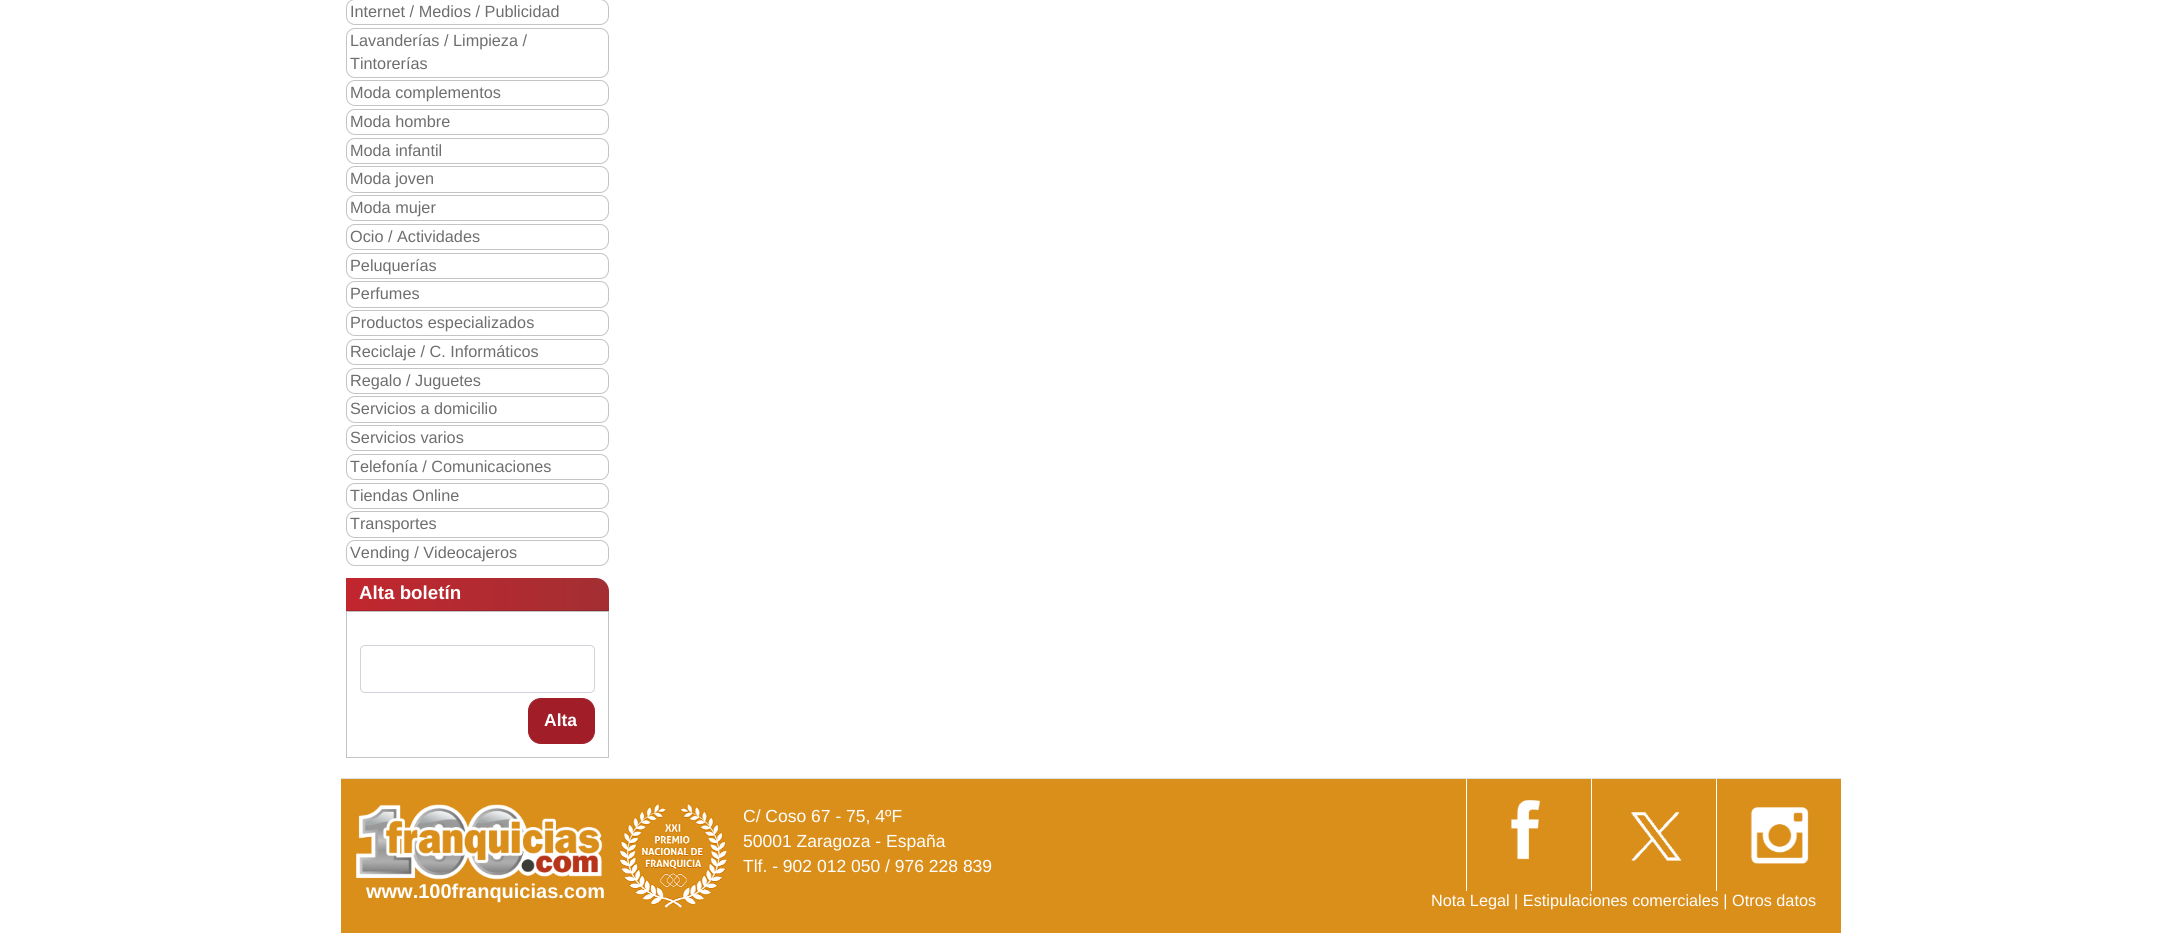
import math
import cairo


def use_color(cr, r, g, b):
  cr.set_source_rgb(r / 255, g / 255, b / 255)

def text(cr, x, y, s, family, size, color, bold=False, italic=False):
  cr.select_font_face(family, cairo.FONT_SLANT_ITALIC if italic else cairo.FONT_SLANT_NORMAL, cairo.FONT_WEIGHT_BOLD if bold else cairo.FONT_WEIGHT_NORMAL)
  cr.set_font_size(size)
  use_color(cr, *color)
  cr.move_to(x, y)
  cr.show_text(s)

def box(cr, x, y, w, h, *color):
  use_color(cr, *color)
  cr.rectangle(x, y, w, h)
  cr.fill()

def round_rect(cr, x, y, w, h, r):
  cr.new_sub_path()
  for i, (u, v) in enumerate([(x + w - r, y + h - r), (x + r, y + h - r), (x + r, y + r), (x + w - r, y + r)]):
    cr.arc(u, v, r, i * math.pi / 2, (i + 1) * math.pi / 2)
  cr.close_path()

def picture(cr, path, x, y, w, h):
  cr.save()
  cr.set_source_surface(cairo.ImageSurface.create_from_png(path), x, y)
  cr.rectangle(x, y, w, h)
  cr.fill()
  cr.restore()

def draw(cr):
  use_color(cr, 255, 255, 255)
  cr.paint()
  round_rect(cr, 346.5, -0.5, 262, 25, 8.5)
  use_color(cr, 196, 196, 196)
  cr.set_line_width(1)
  cr.stroke()
  round_rect(cr, 346.5, 28.5, 262, 49, 8.5)
  cr.stroke()
  round_rect(cr, 346.5, 80.5, 262, 25, 8.5)
  cr.stroke()
  round_rect(cr, 346.5, 109.5, 262, 25, 8.5)
  cr.stroke()
  round_rect(cr, 346.5, 138.5, 262, 25, 8.5)
  cr.stroke()
  round_rect(cr, 346.5, 166.5, 262, 26, 8.5)
  cr.stroke()
  round_rect(cr, 346.5, 195.5, 262, 25, 8.5)
  cr.stroke()
  round_rect(cr, 346.5, 224.5, 262, 25, 8.5)
  cr.stroke()
  round_rect(cr, 346.5, 253.5, 262, 25, 8.5)
  cr.stroke()
  round_rect(cr, 346.5, 281.5, 262, 26, 8.5)
  cr.stroke()
  round_rect(cr, 346.5, 310.5, 262, 25, 8.5)
  cr.stroke()
  round_rect(cr, 346.5, 339.5, 262, 25, 8.5)
  cr.stroke()
  round_rect(cr, 346.5, 368.5, 262, 25, 8.5)
  cr.stroke()
  round_rect(cr, 346.5, 396.5, 262, 26, 8.5)
  cr.stroke()
  round_rect(cr, 346.5, 425.5, 262, 25, 8.5)
  cr.stroke()
  round_rect(cr, 346.5, 454.5, 262, 25, 8.5)
  cr.stroke()
  round_rect(cr, 346.5, 483.5, 262, 25, 8.5)
  cr.stroke()
  round_rect(cr, 346.5, 511.5, 262, 26, 8.5)
  cr.stroke()
  round_rect(cr, 346.5, 540.5, 262, 25, 8.5)
  cr.stroke()
  gradient = cairo.LinearGradient(346, 594, 609, 594)
  gradient.add_color_stop_rgba(0, 0.761, 0.149, 0.184, 1)
  gradient.add_color_stop_rgba(1, 0.639, 0.184, 0.196, 1)
  cr.set_source(gradient)
  cr.new_path()
  cr.move_to(346, 578)
  cr.line_to(596, 578)
  cr.curve_to(603, 578, 609, 584, 609, 591)
  cr.line_to(609, 611)
  cr.line_to(346, 611)
  cr.close_path()
  cr.fill()
  gradient = cairo.LinearGradient(346, 594, 609, 594)
  gradient.add_color_stop_rgba(0, 0.671, 0.129, 0.161, 1)
  gradient.add_color_stop_rgba(1, 0.561, 0.161, 0.173, 1)
  cr.set_source(gradient)
  cr.rectangle(346, 610, 263, 1)
  cr.fill()
  cr.rectangle(346.5, 611.5, 262, 146)
  use_color(cr, 196, 196, 196)
  cr.stroke()
  round_rect(cr, 360.5, 645.5, 234, 47, 4.5)
  use_color(cr, 206, 212, 218)
  cr.stroke()
  use_color(cr, 161, 30, 40)
  round_rect(cr, 528.5, 698.5, 66, 45, 12.5)
  cr.fill_preserve()
  cr.stroke()
  box(cr, 341, 779, 1500, 154, 219, 143, 27)
  box(cr, 341, 778, 1500, 1, 222, 226, 230)
  picture(cr, "img_01.png", 619, 803, 108, 106)
  picture(cr, "img_02.png", 356, 804, 247, 76)
  box(cr, 1466, 779, 1, 112, 255, 255, 255)
  picture(cr, "img_03.png", 1510, 800, 31, 60)
  box(cr, 1591, 779, 1, 112, 255, 255, 255)
  picture(cr, "img_04.png", 1631, 812, 51, 49)
  box(cr, 1716, 779, 1, 112, 255, 255, 255)
  picture(cr, "img_05.png", 1750, 807, 59, 57)
  text(cr, 350, 17, "Internet / Medios / Publicidad", "Liberation Sans", 16.25, (111, 110, 110))
  text(cr, 350, 46, "Lavanderías / Limpieza /", "Liberation Sans", 16.25, (111, 110, 110))
  text(cr, 350, 69, "Tintorerías", "Liberation Sans", 16.25, (111, 110, 110))
  text(cr, 350, 98, "Moda complementos", "Liberation Sans", 16.25, (111, 110, 110))
  text(cr, 350, 127, "Moda hombre", "Liberation Sans", 16.25, (111, 110, 110))
  text(cr, 350, 156, "Moda infantil", "Liberation Sans", 16.25, (111, 110, 110))
  text(cr, 350, 184, "Moda joven", "Liberation Sans", 16.25, (111, 110, 110))
  text(cr, 350, 213, "Moda mujer", "Liberation Sans", 16.25, (111, 110, 110))
  text(cr, 350, 242, "Ocio / Actividades", "Liberation Sans", 16.25, (111, 110, 110))
  text(cr, 350, 271, "Peluquerías", "Liberation Sans", 16.25, (111, 110, 110))
  text(cr, 350, 299, "Perfumes", "Liberation Sans", 16.25, (111, 110, 110))
  text(cr, 350, 328, "Productos especializados", "Liberation Sans", 16.25, (111, 110, 110))
  text(cr, 350, 357, "Reciclaje / C. Informáticos", "Liberation Sans", 16.25, (111, 110, 110))
  text(cr, 350, 386, "Regalo / Juguetes", "Liberation Sans", 16.25, (111, 110, 110))
  text(cr, 350, 414, "Servicios a domicilio", "Liberation Sans", 16.25, (111, 110, 110))
  text(cr, 350, 443, "Servicios varios", "Liberation Sans", 16.25, (111, 110, 110))
  text(cr, 350, 472, "Telefonía / Comunicaciones", "Liberation Sans", 16.25, (111, 110, 110))
  text(cr, 350, 501, "Tiendas Online", "Liberation Sans", 16.25, (111, 110, 110))
  text(cr, 350, 529, "Transportes", "Liberation Sans", 16.25, (111, 110, 110))
  text(cr, 350, 558, "Vending / Videocajeros", "Liberation Sans", 16.25, (111, 110, 110))
  text(cr, 359, 599, "Alta boletín", "Liberation Sans", 18.75, (255, 255, 255), bold=True)
  text(cr, 544, 726, "Alta", "Liberation Sans", 17.5, (255, 255, 255), bold=True)
  text(cr, 743, 822, "C/ Coso 67 - 75, 4ºF", "Liberation Sans", 17.5, (255, 255, 255))
  text(cr, 743, 847, "50001 Zaragoza - España", "Liberation Sans", 17.5, (255, 255, 255))
  text(cr, 743, 872, "Tlf. - 902 012 050 / 976 228 839", "Liberation Sans", 17.5, (255, 255, 255))
  text(cr, 366, 898, "www.100franquicias.com", "Liberation Sans", 20, (255, 255, 255), bold=True)
  text(cr, 1431, 906, "Nota Legal | Estipulaciones comerciales | Otros datos", "Liberation Sans", 16.25, (255, 255, 255))


surface = cairo.ImageSurface(cairo.FORMAT_RGB24, 2182, 933)
cr = cairo.Context(surface)
options = cairo.FontOptions()
options.set_hint_metrics(cairo.HINT_METRICS_OFF)
options.set_hint_style(cairo.HINT_STYLE_NONE)
cr.set_font_options(options)
cr.set_miter_limit(4)
draw(cr)
surface.write_to_png("out.png")
